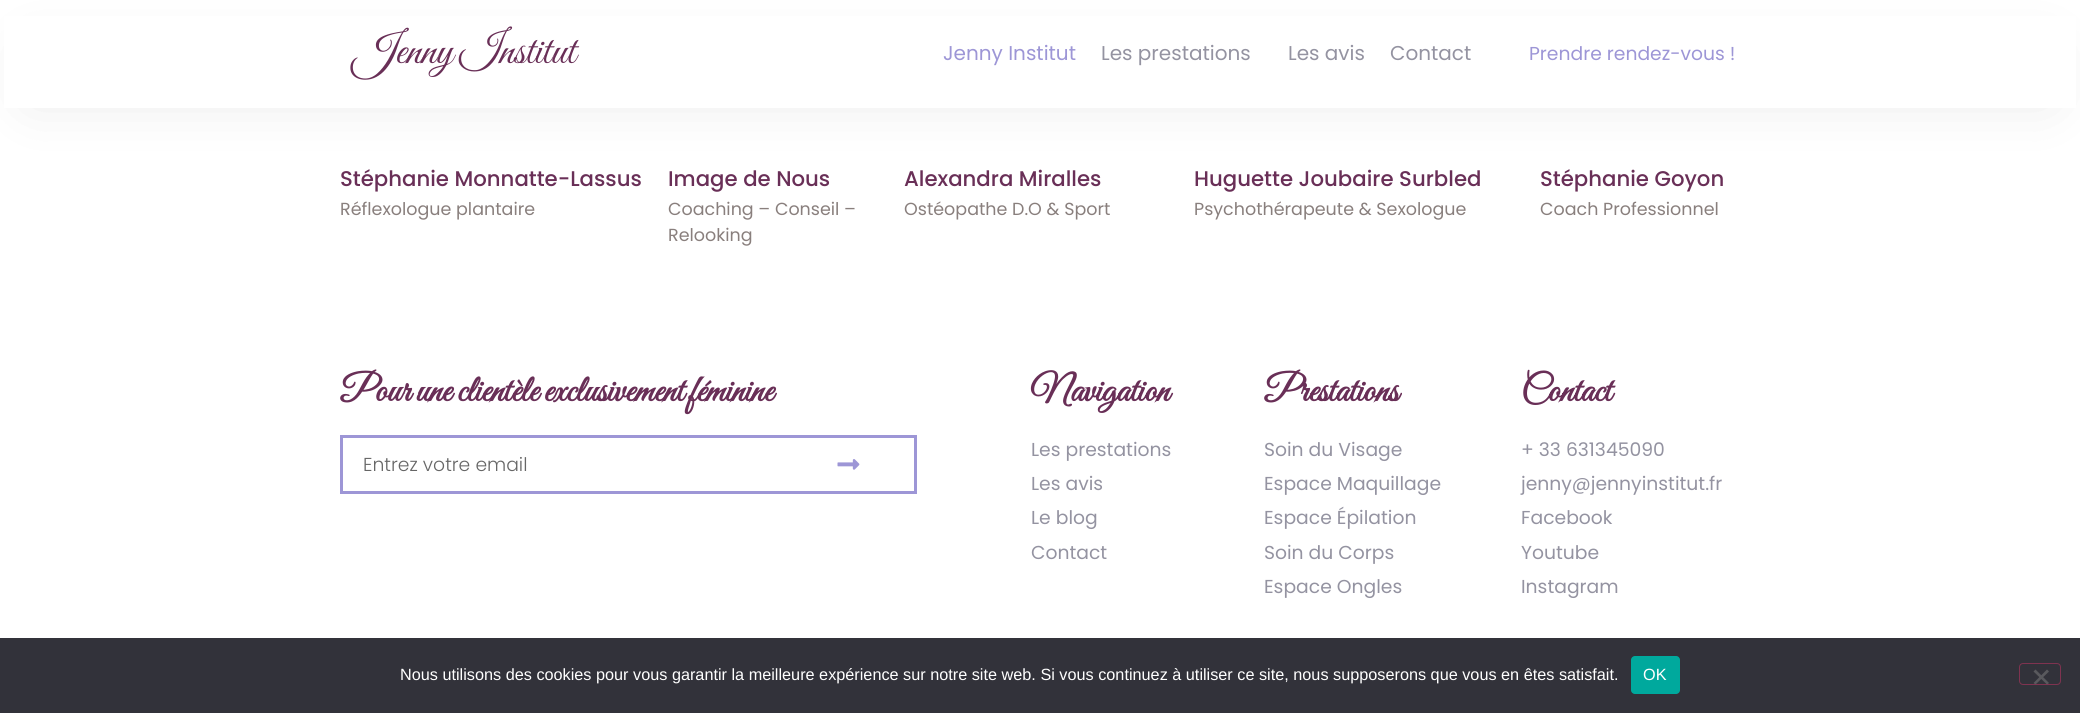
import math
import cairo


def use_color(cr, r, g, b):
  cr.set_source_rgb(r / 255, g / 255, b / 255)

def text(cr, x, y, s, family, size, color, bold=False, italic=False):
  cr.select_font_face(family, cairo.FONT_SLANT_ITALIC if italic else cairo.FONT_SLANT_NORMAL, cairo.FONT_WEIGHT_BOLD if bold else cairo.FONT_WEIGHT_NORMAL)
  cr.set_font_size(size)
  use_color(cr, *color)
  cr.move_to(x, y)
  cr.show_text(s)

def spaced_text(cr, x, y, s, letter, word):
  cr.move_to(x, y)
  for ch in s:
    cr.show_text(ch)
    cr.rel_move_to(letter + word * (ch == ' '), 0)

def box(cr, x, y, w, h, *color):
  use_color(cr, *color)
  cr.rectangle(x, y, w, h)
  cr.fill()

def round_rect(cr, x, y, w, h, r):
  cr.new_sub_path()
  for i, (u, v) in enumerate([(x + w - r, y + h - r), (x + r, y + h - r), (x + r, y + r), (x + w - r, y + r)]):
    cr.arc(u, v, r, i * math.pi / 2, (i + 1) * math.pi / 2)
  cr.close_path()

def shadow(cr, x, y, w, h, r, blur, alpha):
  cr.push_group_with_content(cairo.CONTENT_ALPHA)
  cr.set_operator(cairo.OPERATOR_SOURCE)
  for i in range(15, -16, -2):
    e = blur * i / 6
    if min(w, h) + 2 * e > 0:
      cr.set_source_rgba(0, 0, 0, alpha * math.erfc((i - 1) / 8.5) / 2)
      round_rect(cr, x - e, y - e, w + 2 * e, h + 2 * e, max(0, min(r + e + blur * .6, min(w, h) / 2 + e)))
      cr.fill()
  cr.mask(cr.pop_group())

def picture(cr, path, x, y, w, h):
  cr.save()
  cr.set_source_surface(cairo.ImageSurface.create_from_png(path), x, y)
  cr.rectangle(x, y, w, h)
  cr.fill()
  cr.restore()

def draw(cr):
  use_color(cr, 255, 255, 255)
  cr.paint()
  use_color(cr, 0, 0, 0)
  shadow(cr, 31, 53, 2018, 45, 0, 29, 0.1)
  box(cr, 4, 16, 2072, 92, 255, 255, 255)
  box(cr, 340, 435, 576, 3, 157, 150, 214)
  box(cr, 340, 491, 444, 3, 157, 150, 214)
  box(cr, 340, 435, 3, 59, 157, 150, 214)
  box(cr, 914, 435, 3, 59, 157, 150, 214)
  box(cr, 784, 491, 132, 3, 157, 150, 214)
  picture(cr, "img_01.png", 837, 459, 23, 11)
  box(cr, 0, 638, 2080, 75, 50, 50, 58)
  use_color(cr, 0, 169, 157)
  round_rect(cr, 1631, 656, 49, 38, 4)
  cr.fill()
  round_rect(cr, 2019.5, 663.5, 41, 21, 3.5)
  use_color(cr, 127, 51, 80)
  cr.set_line_width(1)
  cr.stroke()
  use_color(cr, 89, 89, 93)
  cr.new_path()
  cr.move_to(2047, 669.5)
  cr.line_to(2049, 671.5)
  cr.line_to(2035.5, 684.5)
  cr.line_to(2033.5, 683)
  cr.close_path()
  cr.fill()
  cr.new_path()
  cr.move_to(2033.5, 671.5)
  cr.line_to(2035.5, 669.5)
  cr.line_to(2049, 683)
  cr.line_to(2047, 684.5)
  cr.close_path()
  cr.fill()
  cr.select_font_face("Great Vibes")
  cr.set_font_size(43.75)
  use_color(cr, 105, 47, 87)
  spaced_text(cr, 353, 63, "Jenny Institut", 0, -1)
  text(cr, 943, 60, "Jenny Institut", "Poppins", 20, (157, 150, 214))
  text(cr, 1101, 60, "Les prestations", "Poppins", 20, (148, 147, 161))
  text(cr, 1288, 60, "Les avis", "Poppins", 20, (148, 147, 161))
  text(cr, 1390, 60, "Contact", "Poppins", 20, (148, 147, 161))
  text(cr, 1529, 60, "Prendre rendez-vous !", "Poppins", 18.75, (157, 150, 214))
  text(cr, 340, 186, "Stéphanie Monnatte-Lassus", "Poppins Medium", 21.25, (105, 47, 87))
  text(cr, 340, 215, "Réflexologue plantaire", "Poppins", 17.5, (137, 127, 125))
  text(cr, 668, 186, "Image de Nous", "Poppins Medium", 21.25, (105, 47, 87))
  text(cr, 668, 215, "Coaching – Conseil –", "Poppins", 17.5, (137, 127, 125))
  text(cr, 668, 241, "Relooking", "Poppins", 17.5, (137, 127, 125))
  text(cr, 904, 186, "Alexandra Miralles", "Poppins Medium", 21.25, (105, 47, 87))
  text(cr, 904, 215, "Ostéopathe D.O & Sport", "Poppins", 17.5, (137, 127, 125))
  text(cr, 1194, 186, "Huguette Joubaire Surbled", "Poppins Medium", 21.25, (105, 47, 87))
  text(cr, 1194, 215, "Psychothérapeute & Sexologue", "Poppins", 17.5, (137, 127, 125))
  text(cr, 1540, 186, "Stéphanie Goyon", "Poppins Medium", 21.25, (105, 47, 87))
  text(cr, 1540, 215, "Coach Professionnel", "Poppins", 17.5, (137, 127, 125))
  cr.select_font_face("Great Vibes", cairo.FONT_SLANT_NORMAL, cairo.FONT_WEIGHT_BOLD)
  cr.set_font_size(37.5)
  use_color(cr, 105, 47, 87)
  spaced_text(cr, 340, 401, "Pour une clientèle exclusivement féminine", 0, -1)
  text(cr, 363, 471, "Entrez votre email", "Poppins Light", 18.75, (102, 102, 102))
  text(cr, 1031, 401, "Navigation", "Great Vibes", 37.5, (105, 47, 87), bold=True)
  text(cr, 1031, 456, "Les prestations", "Poppins", 18.75, (148, 147, 161))
  text(cr, 1031, 490, "Les avis", "Poppins", 18.75, (148, 147, 161))
  text(cr, 1031, 524, "Le blog", "Poppins", 18.75, (148, 147, 161))
  text(cr, 1031, 559, "Contact", "Poppins", 18.75, (148, 147, 161))
  text(cr, 1264, 401, "Prestations", "Great Vibes", 37.5, (105, 47, 87), bold=True)
  text(cr, 1264, 456, "Soin du Visage", "Poppins", 18.75, (148, 147, 161))
  text(cr, 1264, 490, "Espace Maquillage", "Poppins", 18.75, (148, 147, 161))
  text(cr, 1264, 524, "Espace Épilation", "Poppins", 18.75, (148, 147, 161))
  text(cr, 1264, 559, "Soin du Corps", "Poppins", 18.75, (148, 147, 161))
  text(cr, 1264, 593, "Espace Ongles", "Poppins", 18.75, (148, 147, 161))
  text(cr, 1521, 401, "Contact", "Great Vibes", 37.5, (105, 47, 87), bold=True)
  text(cr, 1521, 456, "+ 33 631345090", "Poppins", 18.75, (148, 147, 161))
  text(cr, 1521, 490, "jenny@jennyinstitut.fr", "Poppins", 18.75, (148, 147, 161))
  text(cr, 1521, 524, "Facebook", "Poppins", 18.75, (148, 147, 161))
  text(cr, 1521, 559, "Youtube", "Poppins", 18.75, (148, 147, 161))
  text(cr, 1521, 593, "Instagram", "Poppins", 18.75, (148, 147, 161))
  text(cr, 400, 680, "Nous utilisons des cookies pour vous garantir la meilleure expérience sur notre site web. Si vous continuez à utiliser ce site, nous supposerons que vous en êtes satisfait.", "Liberation Sans", 16.25, (255, 255, 255))
  text(cr, 1643, 680, "OK", "Liberation Sans", 16.25, (255, 255, 255))


surface = cairo.ImageSurface(cairo.FORMAT_RGB24, 2080, 713)
cr = cairo.Context(surface)
options = cairo.FontOptions()
options.set_hint_metrics(cairo.HINT_METRICS_OFF)
options.set_hint_style(cairo.HINT_STYLE_NONE)
cr.set_font_options(options)
cr.set_miter_limit(4)
draw(cr)
surface.write_to_png("out.png")
